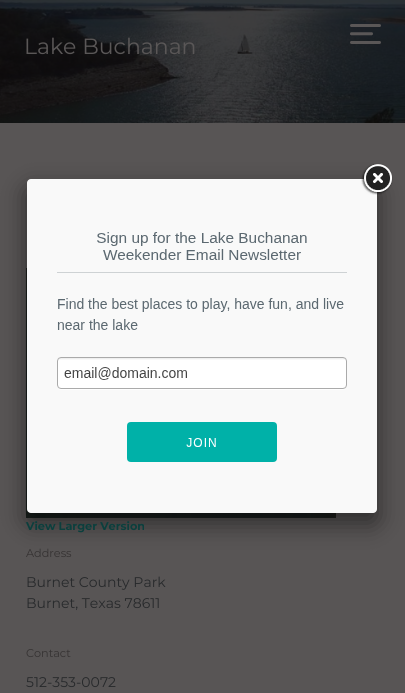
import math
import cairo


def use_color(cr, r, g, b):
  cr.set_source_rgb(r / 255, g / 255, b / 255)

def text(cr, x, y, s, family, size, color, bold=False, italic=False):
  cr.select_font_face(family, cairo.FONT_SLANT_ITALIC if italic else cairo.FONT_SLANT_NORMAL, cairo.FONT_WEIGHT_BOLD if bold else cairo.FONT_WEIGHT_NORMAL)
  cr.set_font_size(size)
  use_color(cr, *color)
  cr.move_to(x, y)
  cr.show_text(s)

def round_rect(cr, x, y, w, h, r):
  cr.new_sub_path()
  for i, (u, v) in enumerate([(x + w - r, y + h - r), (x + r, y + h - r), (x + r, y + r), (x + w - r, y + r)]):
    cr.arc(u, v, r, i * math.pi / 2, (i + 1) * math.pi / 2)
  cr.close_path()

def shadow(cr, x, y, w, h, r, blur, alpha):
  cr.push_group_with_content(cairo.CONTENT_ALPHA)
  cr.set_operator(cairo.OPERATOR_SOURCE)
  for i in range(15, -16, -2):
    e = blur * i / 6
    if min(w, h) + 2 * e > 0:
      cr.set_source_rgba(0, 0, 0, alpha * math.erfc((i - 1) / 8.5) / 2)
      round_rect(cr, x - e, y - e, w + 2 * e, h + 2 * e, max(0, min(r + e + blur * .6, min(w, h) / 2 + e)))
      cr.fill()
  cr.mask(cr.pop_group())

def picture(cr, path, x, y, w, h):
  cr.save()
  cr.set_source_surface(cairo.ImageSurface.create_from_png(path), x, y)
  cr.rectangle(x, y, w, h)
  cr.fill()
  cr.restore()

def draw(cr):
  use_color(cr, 88, 85, 85)
  cr.paint()
  picture(cr, "img_01.png", 0, 0, 405, 123)
  picture(cr, "img_02.png", 350, 24, 31, 20)
  picture(cr, "img_03.png", 26, 268, 310, 250)
  use_color(cr, 0, 0, 0)
  shadow(cr, 27, 189, 350, 334, 4, 12.5, 0.5)
  use_color(cr, 249, 249, 249)
  round_rect(cr, 27, 179, 350, 334, 4)
  cr.fill()
  picture(cr, "img_04.png", 361, 163, 32, 32)
  picture(cr, "img_05.png", 57, 232, 290, 230)
  text(cr, 24, 54, "Lake Buchanan", "Montserrat", 22, (90, 87, 87))
  text(cr, 26, 530, "View Larger Version", "Montserrat", 11.25, (11, 63, 61), bold=True)
  text(cr, 26, 557, "Address", "Montserrat", 11.25, (53, 50, 50))
  text(cr, 26, 587, "Burnet County Park", "Montserrat", 14, (39, 41, 43))
  text(cr, 26, 608, "Burnet, Texas 78611", "Montserrat", 14, (39, 41, 43))
  text(cr, 26, 657, "Contact", "Montserrat", 11.25, (53, 50, 50))
  text(cr, 26, 687, "512-353-0072", "Montserrat", 14, (39, 41, 43))


surface = cairo.ImageSurface(cairo.FORMAT_RGB24, 405, 693)
cr = cairo.Context(surface)
options = cairo.FontOptions()
options.set_hint_metrics(cairo.HINT_METRICS_OFF)
options.set_hint_style(cairo.HINT_STYLE_NONE)
cr.set_font_options(options)
cr.set_miter_limit(4)
draw(cr)
surface.write_to_png("out.png")
